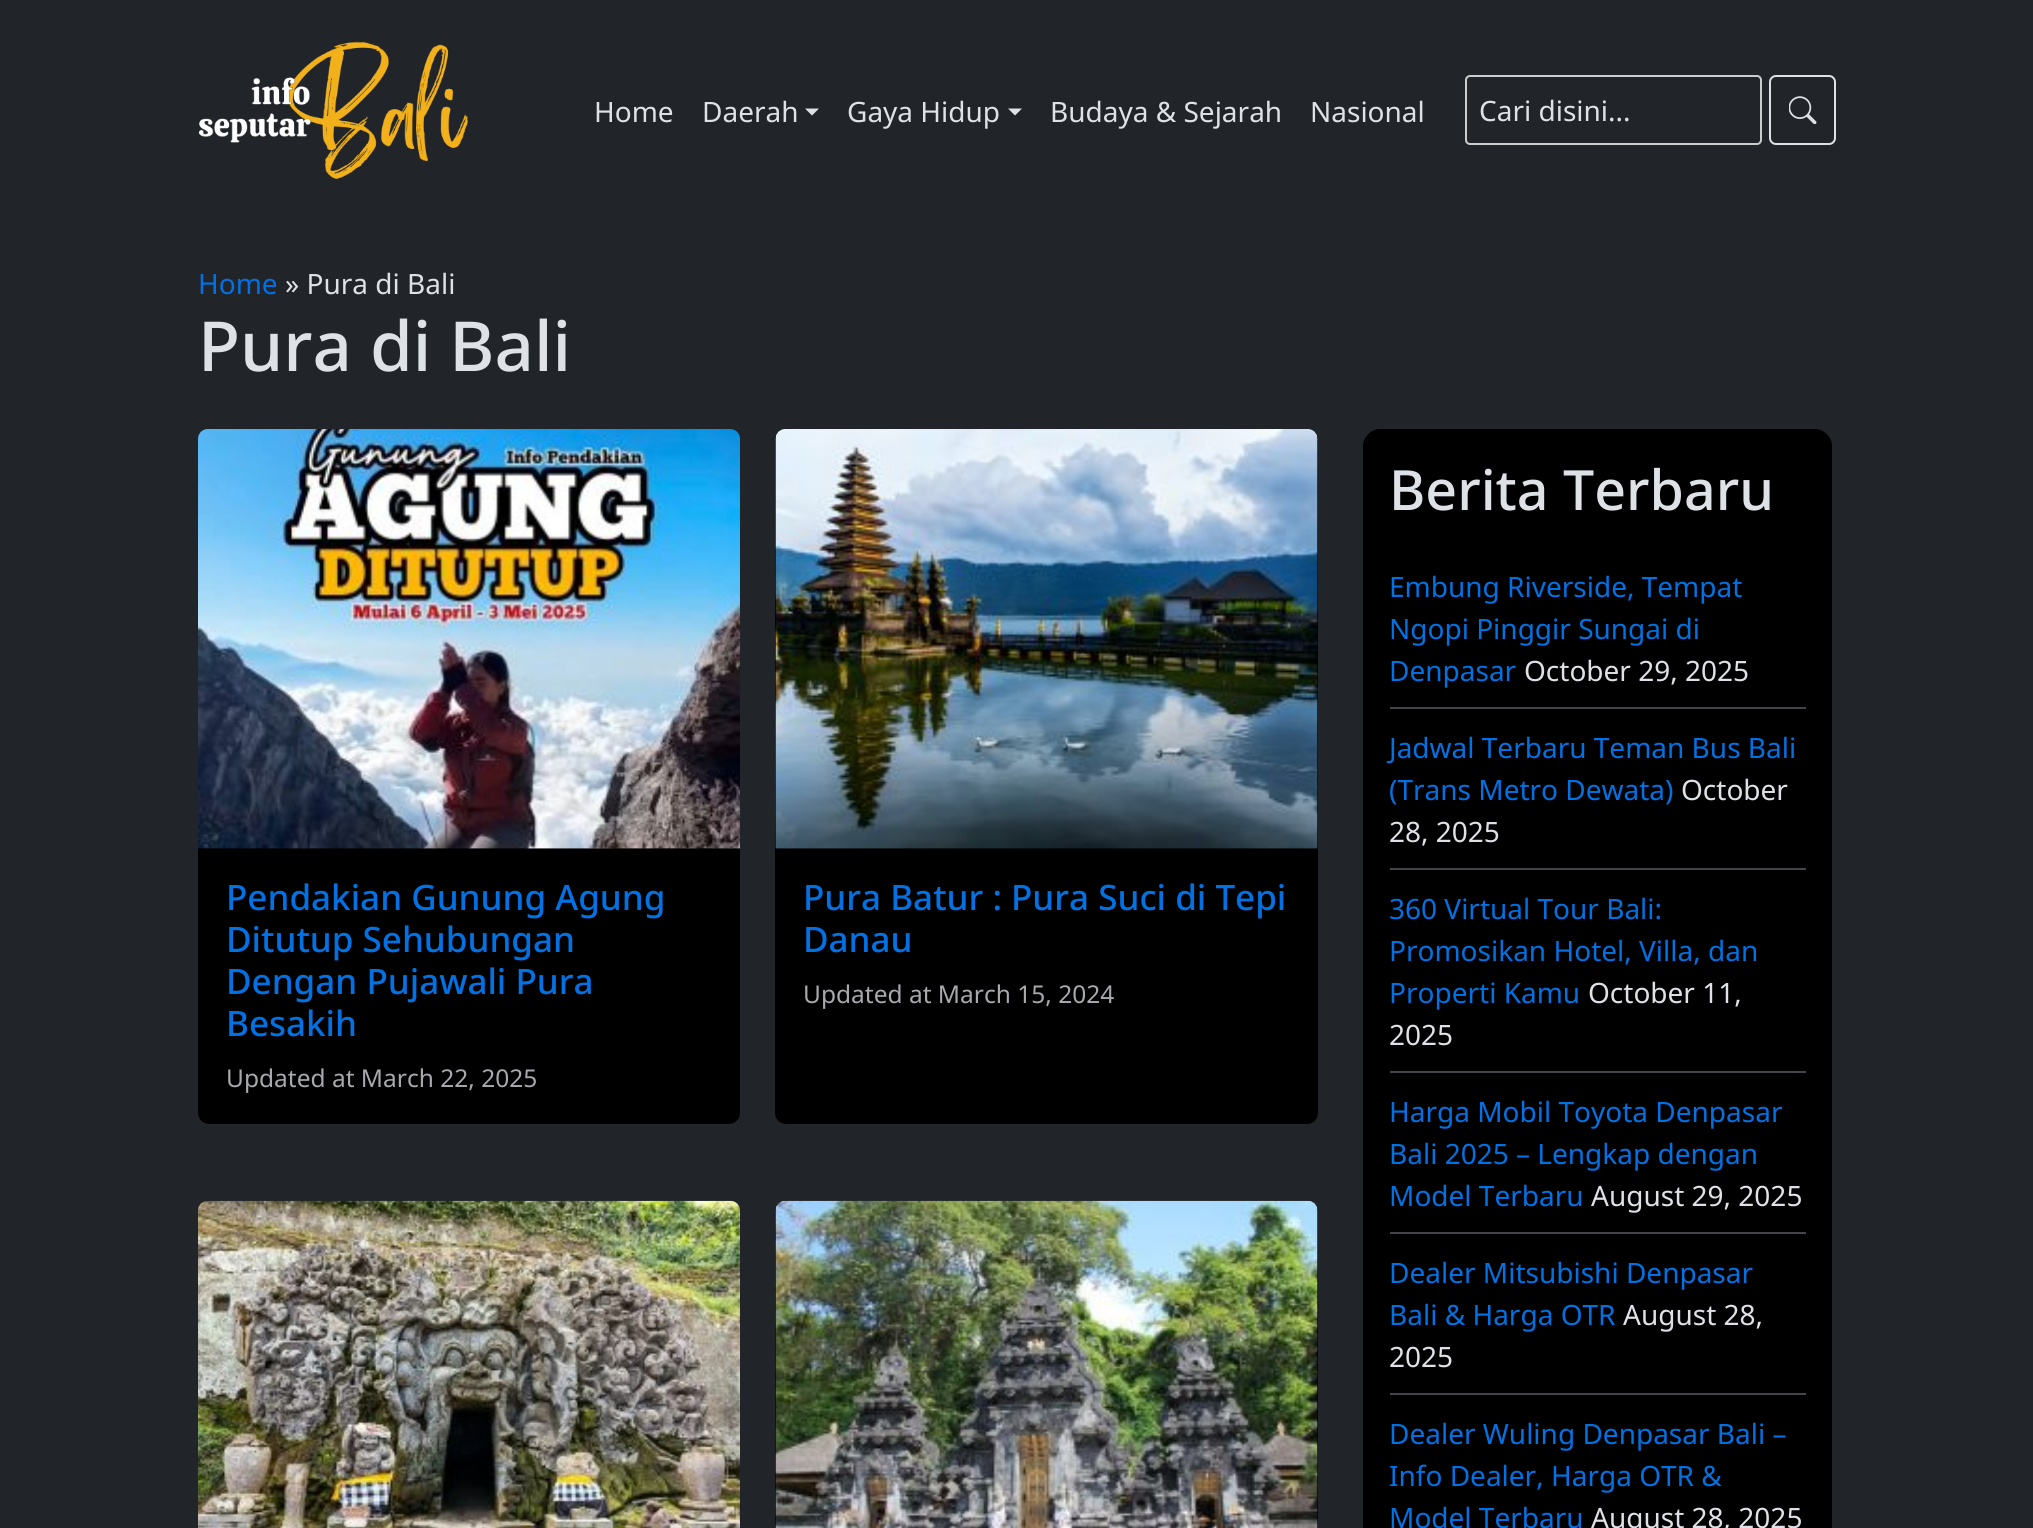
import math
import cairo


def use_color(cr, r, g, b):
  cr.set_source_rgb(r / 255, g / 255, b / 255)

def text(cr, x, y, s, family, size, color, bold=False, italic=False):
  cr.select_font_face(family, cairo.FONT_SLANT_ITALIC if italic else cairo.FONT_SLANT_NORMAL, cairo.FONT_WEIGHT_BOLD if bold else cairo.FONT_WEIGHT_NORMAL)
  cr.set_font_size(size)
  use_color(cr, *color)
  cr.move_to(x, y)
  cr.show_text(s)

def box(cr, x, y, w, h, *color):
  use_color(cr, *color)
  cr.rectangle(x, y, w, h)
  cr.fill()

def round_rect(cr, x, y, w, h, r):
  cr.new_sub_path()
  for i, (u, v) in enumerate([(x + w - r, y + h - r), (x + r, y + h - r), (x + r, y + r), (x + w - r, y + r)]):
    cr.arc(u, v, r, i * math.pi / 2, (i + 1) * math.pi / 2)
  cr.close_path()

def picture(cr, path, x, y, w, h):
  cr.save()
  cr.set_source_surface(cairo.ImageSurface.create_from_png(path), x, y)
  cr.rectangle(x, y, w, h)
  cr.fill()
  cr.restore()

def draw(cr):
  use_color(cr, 33, 37, 41)
  cr.paint()
  picture(cr, "img_01.png", 198, 41, 270, 138)
  use_color(cr, 222, 226, 230)
  cr.new_path()
  cr.move_to(805, 108.5)
  cr.line_to(819, 108.5)
  cr.line_to(812, 115.5)
  cr.close_path()
  cr.fill()
  cr.new_path()
  cr.move_to(1008, 108.5)
  cr.line_to(1022, 108.5)
  cr.line_to(1015, 115.5)
  cr.close_path()
  cr.fill()
  round_rect(cr, 1466, 76, 295, 68, 4)
  use_color(cr, 204, 204, 204)
  cr.stroke()
  round_rect(cr, 1770, 76, 65, 68, 6)
  use_color(cr, 222, 226, 230)
  cr.stroke()
  picture(cr, "img_02.png", 1789, 96, 28, 28)
  use_color(cr, 0, 0, 0)
  round_rect(cr, 198, 429, 542, 695, 11)
  cr.fill()
  picture(cr, "img_03.png", 198, 429, 542, 420)
  round_rect(cr, 775, 429, 543, 695, 11)
  cr.fill()
  picture(cr, "img_04.png", 775, 429, 543, 420)
  picture(cr, "img_05.png", 198, 1200, 542, 328)
  round_rect(cr, 775, 1201, 543, 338, 11)
  cr.fill()
  picture(cr, "img_06.png", 775, 1200, 543, 328)
  round_rect(cr, 1363, 429, 469, 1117, 18)
  cr.fill()
  cr.new_path()
  cr.move_to(1381, 429)
  cr.line_to(1814, 429)
  cr.curve_to(1824, 429, 1832, 437, 1832, 447)
  cr.line_to(1832, 548)
  cr.line_to(1363, 548)
  cr.line_to(1363, 447)
  cr.curve_to(1363, 437, 1371, 429, 1381, 429)
  cr.close_path()
  cr.fill()
  box(cr, 1390, 707, 416, 2, 66, 69, 73)
  box(cr, 1390, 868, 416, 2, 66, 69, 73)
  box(cr, 1390, 1071, 416, 2, 66, 69, 73)
  box(cr, 1390, 1232, 416, 2, 66, 69, 73)
  box(cr, 1390, 1393, 416, 2, 66, 69, 73)
  text(cr, 594, 122, "Home", "Noto Sans", 28, (222, 226, 230))
  text(cr, 702, 122, "Daerah", "Noto Sans", 28, (222, 226, 230))
  text(cr, 847, 122, "Gaya Hidup", "Noto Sans", 28, (222, 226, 230))
  text(cr, 1050, 122, "Budaya & Sejarah", "Noto Sans", 28, (222, 226, 230))
  text(cr, 1310, 122, "Nasional", "Noto Sans", 28, (222, 226, 230))
  text(cr, 1479, 121, "Cari disini...", "Noto Sans", 28, (222, 226, 230))
  text(cr, 198, 294, "Home", "Noto Sans", 28, (1, 113, 227))
  text(cr, 285, 294, "» Pura di Bali", "Noto Sans", 28, (222, 226, 230))
  text(cr, 198, 371, "Pura di Bali", "Noto Sans Medium", 69, (222, 226, 230))
  text(cr, 226, 910, "Pendakian Gunung Agung", "Noto Sans Medium", 35, (1, 113, 227))
  text(cr, 226, 952, "Ditutup Sehubungan", "Noto Sans Medium", 35, (1, 113, 227))
  text(cr, 226, 994, "Dengan Pujawali Pura", "Noto Sans Medium", 35, (1, 113, 227))
  text(cr, 226, 1036, "Besakih", "Noto Sans Medium", 35, (1, 113, 227))
  text(cr, 226, 1087, "Updated at March 22, 2025", "Noto Sans", 24.5, (167, 170, 173))
  text(cr, 803, 910, "Pura Batur : Pura Suci di Tepi", "Noto Sans Medium", 35, (1, 113, 227))
  text(cr, 803, 952, "Danau", "Noto Sans Medium", 35, (1, 113, 227))
  text(cr, 803, 1003, "Updated at March 15, 2024", "Noto Sans", 24.5, (167, 170, 173))
  text(cr, 1389, 510, "Berita Terbaru", "Noto Sans Medium", 55.5, (222, 226, 230))
  text(cr, 1389, 597, "Embung Riverside, Tempat", "Noto Sans", 28, (1, 113, 227))
  text(cr, 1389, 639, "Ngopi Pinggir Sungai di", "Noto Sans", 28, (1, 113, 227))
  text(cr, 1389, 681, "Denpasar", "Noto Sans", 28, (1, 113, 227))
  text(cr, 1524, 681, "October 29, 2025", "Noto Sans", 28, (222, 226, 230))
  text(cr, 1389, 758, "Jadwal Terbaru Teman Bus Bali", "Noto Sans", 28, (1, 113, 227))
  text(cr, 1389, 800, "(Trans Metro Dewata)", "Noto Sans", 28, (1, 113, 227))
  text(cr, 1681, 800, "October", "Noto Sans", 28, (222, 226, 230))
  text(cr, 1389, 842, "28, 2025", "Noto Sans", 28, (222, 226, 230))
  text(cr, 1389, 919, "360 Virtual Tour Bali:", "Noto Sans", 28, (1, 113, 227))
  text(cr, 1389, 961, "Promosikan Hotel, Villa, dan", "Noto Sans", 28, (1, 113, 227))
  text(cr, 1389, 1003, "Properti Kamu", "Noto Sans", 28, (1, 113, 227))
  text(cr, 1588, 1003, "October 11,", "Noto Sans", 28, (222, 226, 230))
  text(cr, 1389, 1045, "2025", "Noto Sans", 28, (222, 226, 230))
  text(cr, 1389, 1122, "Harga Mobil Toyota Denpasar", "Noto Sans", 28, (1, 113, 227))
  text(cr, 1389, 1164, "Bali 2025 – Lengkap dengan", "Noto Sans", 28, (1, 113, 227))
  text(cr, 1389, 1206, "Model Terbaru", "Noto Sans", 28, (1, 113, 227))
  text(cr, 1591, 1206, "August 29, 2025", "Noto Sans", 28, (222, 226, 230))
  text(cr, 1389, 1283, "Dealer Mitsubishi Denpasar", "Noto Sans", 28, (1, 113, 227))
  text(cr, 1389, 1325, "Bali & Harga OTR", "Noto Sans", 28, (1, 113, 227))
  text(cr, 1623, 1325, "August 28,", "Noto Sans", 28, (222, 226, 230))
  text(cr, 1389, 1367, "2025", "Noto Sans", 28, (222, 226, 230))
  text(cr, 1389, 1444, "Dealer Wuling Denpasar Bali –", "Noto Sans", 28, (1, 113, 227))
  text(cr, 1389, 1486, "Info Dealer, Harga OTR &", "Noto Sans", 28, (1, 113, 227))
  text(cr, 1389, 1528, "Model Terbaru", "Noto Sans", 28, (1, 113, 227))
  text(cr, 1591, 1528, "August 28, 2025", "Noto Sans", 28, (222, 226, 230))


surface = cairo.ImageSurface(cairo.FORMAT_RGB24, 2033, 1528)
cr = cairo.Context(surface)
options = cairo.FontOptions()
options.set_hint_metrics(cairo.HINT_METRICS_OFF)
options.set_hint_style(cairo.HINT_STYLE_NONE)
cr.set_font_options(options)
cr.set_miter_limit(4)
draw(cr)
surface.write_to_png("out.png")
